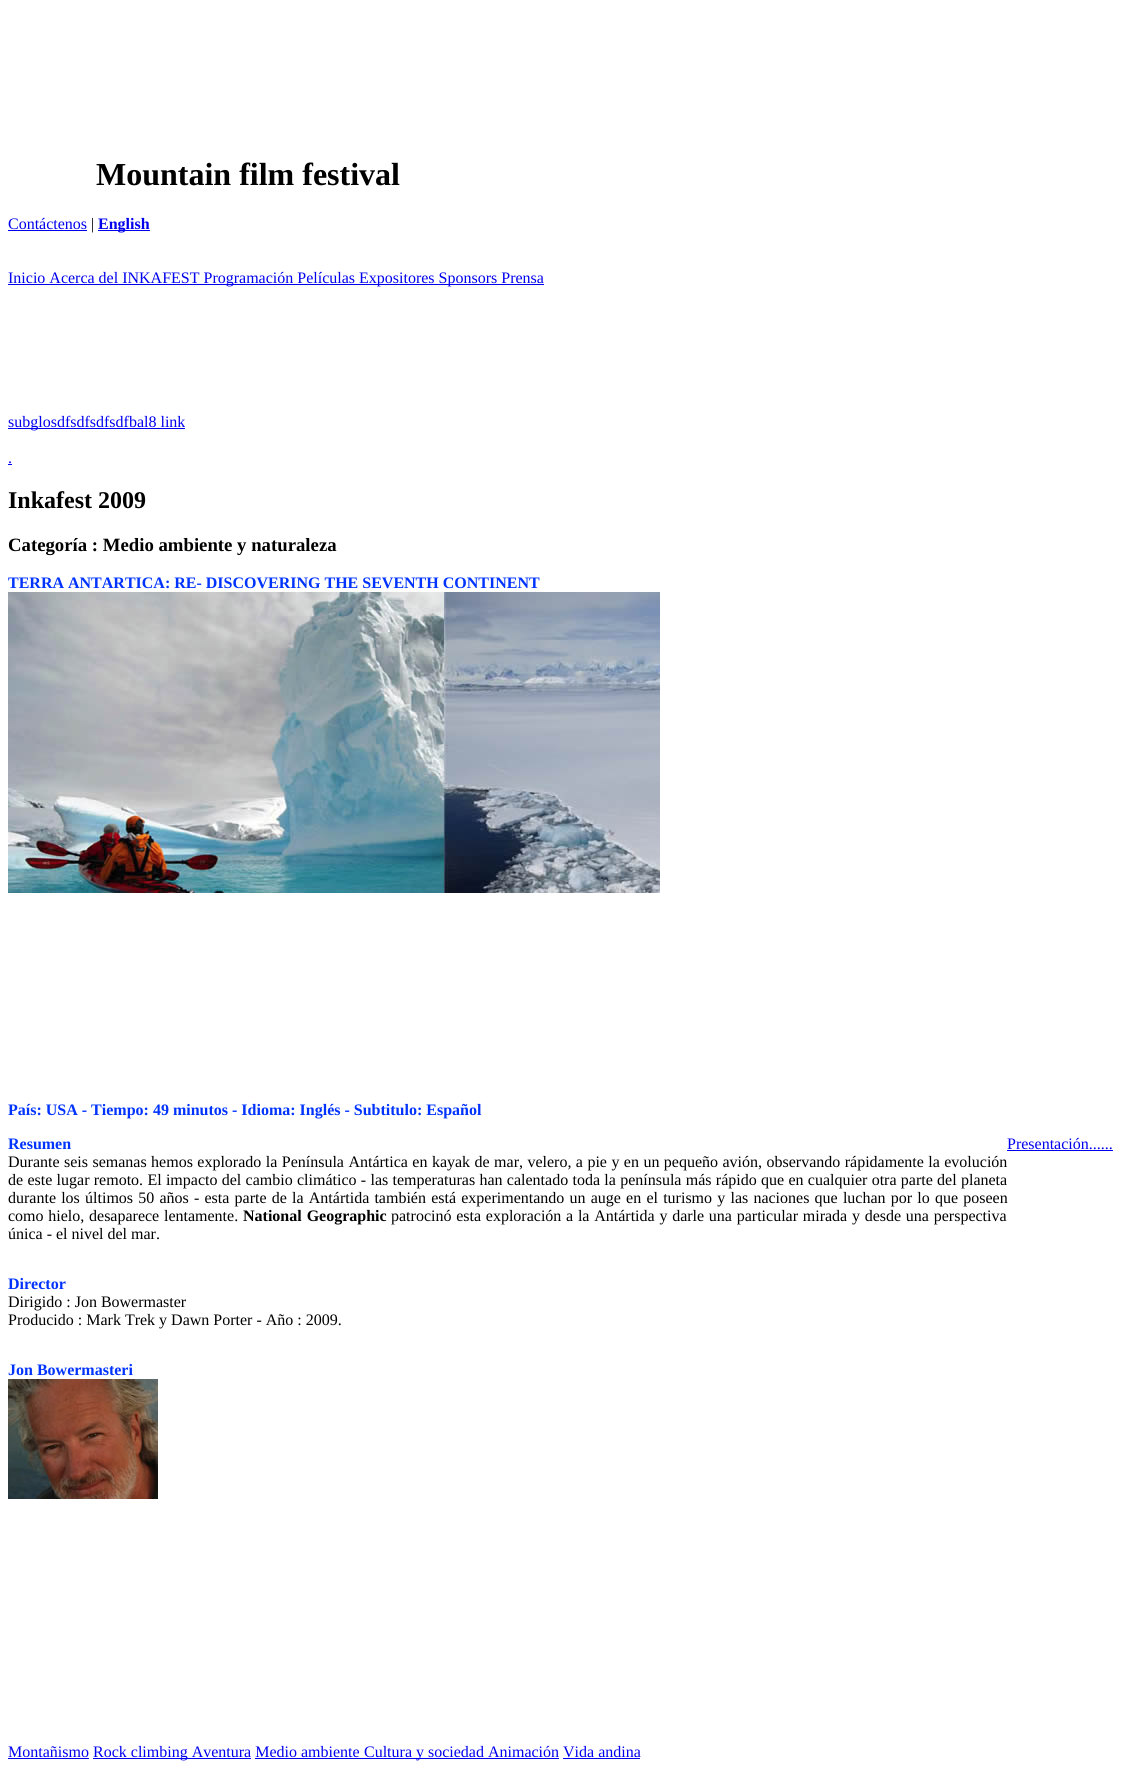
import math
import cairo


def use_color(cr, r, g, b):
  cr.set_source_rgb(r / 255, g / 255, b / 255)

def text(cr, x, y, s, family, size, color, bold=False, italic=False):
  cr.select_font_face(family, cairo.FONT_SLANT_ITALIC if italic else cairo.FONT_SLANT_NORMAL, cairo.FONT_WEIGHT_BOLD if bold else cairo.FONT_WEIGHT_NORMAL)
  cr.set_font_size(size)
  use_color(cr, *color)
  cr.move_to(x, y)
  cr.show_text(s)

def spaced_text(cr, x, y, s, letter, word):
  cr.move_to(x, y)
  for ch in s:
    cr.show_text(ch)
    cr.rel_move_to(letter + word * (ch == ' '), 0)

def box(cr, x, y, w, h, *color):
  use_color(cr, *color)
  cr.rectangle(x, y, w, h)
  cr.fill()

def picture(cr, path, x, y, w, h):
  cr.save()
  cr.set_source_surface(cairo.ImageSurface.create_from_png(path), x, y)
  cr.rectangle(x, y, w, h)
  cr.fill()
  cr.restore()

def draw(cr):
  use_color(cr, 255, 255, 255)
  cr.paint()
  box(cr, 8, 230, 79, 1, 0, 0, 238)
  box(cr, 98, 230, 52, 1, 0, 0, 238)
  box(cr, 8, 284, 536, 1, 0, 0, 238)
  box(cr, 8, 428, 177, 1, 0, 0, 238)
  box(cr, 8, 464, 4, 1, 0, 0, 238)
  picture(cr, "img_01.png", 8, 592, 652, 301)
  box(cr, 1007, 1150, 106, 1, 0, 0, 238)
  picture(cr, "img_02.png", 8, 1379, 150, 120)
  box(cr, 8, 1758, 81, 1, 0, 0, 238)
  box(cr, 93, 1758, 158, 1, 0, 0, 238)
  box(cr, 255, 1758, 304, 1, 0, 0, 238)
  box(cr, 563, 1758, 77, 1, 0, 0, 238)
  text(cr, 96, 185, "Mountain film festival", "Liberation Serif", 32, (0, 0, 0), bold=True)
  text(cr, 8, 229, "Contáctenos", "Liberation Serif", 16, (0, 0, 238))
  text(cr, 91, 229, "|", "Liberation Serif", 16, (0, 0, 0))
  text(cr, 98, 229, "English", "Liberation Serif", 16, (0, 0, 238), bold=True)
  text(cr, 8, 283, "Inicio Acerca del INKAFEST Programación Películas Expositores Sponsors Prensa", "Liberation Serif", 16, (0, 0, 238))
  text(cr, 8, 427, "subglosdfsdfsdfsdfbal8 link", "Liberation Serif", 16, (0, 0, 238))
  text(cr, 8, 463, ".", "Liberation Serif", 16, (0, 0, 238))
  text(cr, 8, 508, "Inkafest 2009", "Liberation Serif", 24, (0, 0, 0), bold=True)
  text(cr, 8, 551, "Categoría : Medio ambiente y naturaleza", "Liberation Serif", 18.75, (0, 0, 0), bold=True)
  text(cr, 8, 588, "TERRA ANTARTICA: RE- DISCOVERING THE SEVENTH CONTINENT", "Liberation Serif", 16, (0, 51, 255), bold=True)
  text(cr, 8, 1115, "País: USA - Tiempo: 49 minutos - Idioma: Inglés - Subtitulo: Español", "Liberation Serif", 16, (0, 51, 255), bold=True)
  text(cr, 8, 1149, "Resumen", "Liberation Serif", 16, (0, 51, 255), bold=True)
  cr.select_font_face("Liberation Serif")
  use_color(cr, 0, 0, 0)
  spaced_text(cr, 8, 1167, "Durante seis semanas hemos explorado la Península Antártica en kayak de mar, velero, a pie y en un pequeño avión, observando rápidamente la evolución", 0, 0.45)
  spaced_text(cr, 8, 1185, "de este lugar remoto. El impacto del cambio climático - las temperaturas han calentado toda la península más rápido que en cualquier otra parte del planeta", 0, 0.3)
  spaced_text(cr, 8, 1203, "durante los últimos 50 años - esta parte de la Antártida también está experimentando un auge en el turismo y las naciones que luchan por lo que poseen", 0, 1.2)
  spaced_text(cr, 8, 1221, "como hielo, desaparece lentamente.", 0, 0.75)
  cr.select_font_face("Liberation Serif", cairo.FONT_SLANT_NORMAL, cairo.FONT_WEIGHT_BOLD)
  spaced_text(cr, 243, 1221, "National Geographic", 0, 1)
  cr.select_font_face("Liberation Serif")
  spaced_text(cr, 391, 1221, "patrocinó esta exploración a la Antártida y darle una particular mirada y desde una perspectiva", 0, 0.75)
  text(cr, 8, 1239, "única - el nivel del mar.", "Liberation Serif", 16, (0, 0, 0))
  text(cr, 1007, 1149, "Presentación......", "Liberation Serif", 16, (0, 0, 238))
  text(cr, 8, 1289, "Director", "Liberation Serif", 16, (0, 51, 255), bold=True)
  text(cr, 8, 1307, "Dirigido : Jon Bowermaster", "Liberation Serif", 16, (0, 0, 0))
  text(cr, 8, 1325, "Producido : Mark Trek y Dawn Porter - Año : 2009.", "Liberation Serif", 16, (0, 0, 0))
  text(cr, 8, 1375, "Jon Bowermasteri", "Liberation Serif", 16, (0, 51, 255), bold=True)
  text(cr, 8, 1757, "Montañismo", "Liberation Serif", 16, (0, 0, 238))
  text(cr, 93, 1757, "Rock climbing Aventura Medio ambiente", "Liberation Serif", 16, (0, 0, 238))
  text(cr, 364, 1757, "Cultura y sociedad Animación Vida andina", "Liberation Serif", 16, (0, 0, 238))


surface = cairo.ImageSurface(cairo.FORMAT_RGB24, 1121, 1772)
cr = cairo.Context(surface)
options = cairo.FontOptions()
options.set_hint_metrics(cairo.HINT_METRICS_OFF)
options.set_hint_style(cairo.HINT_STYLE_NONE)
cr.set_font_options(options)
cr.set_miter_limit(4)
draw(cr)
surface.write_to_png("out.png")
